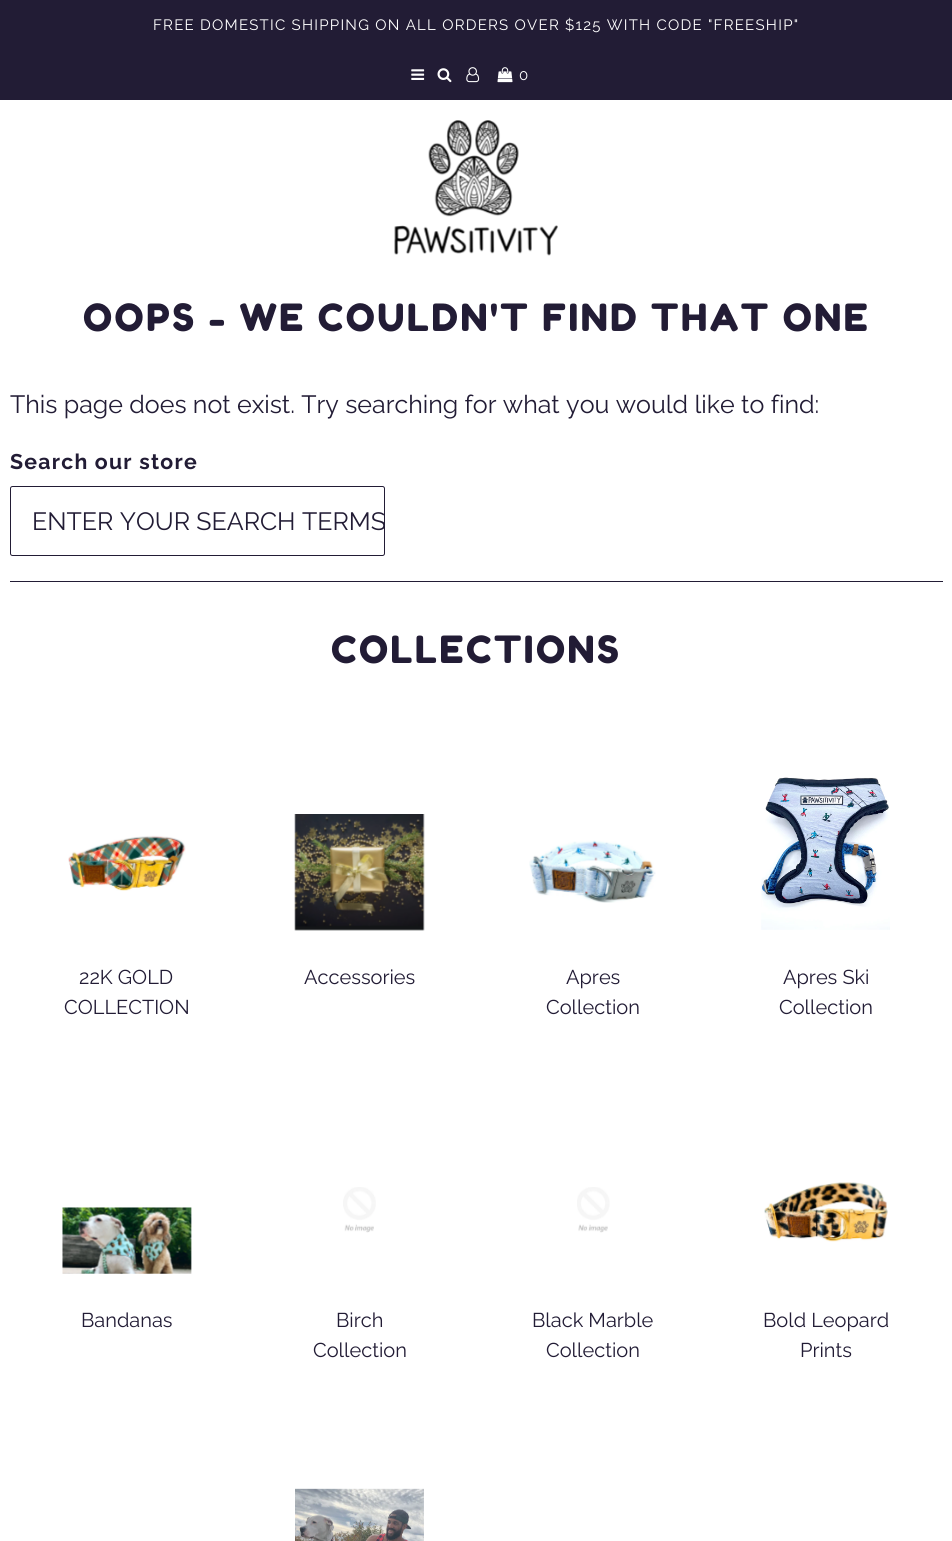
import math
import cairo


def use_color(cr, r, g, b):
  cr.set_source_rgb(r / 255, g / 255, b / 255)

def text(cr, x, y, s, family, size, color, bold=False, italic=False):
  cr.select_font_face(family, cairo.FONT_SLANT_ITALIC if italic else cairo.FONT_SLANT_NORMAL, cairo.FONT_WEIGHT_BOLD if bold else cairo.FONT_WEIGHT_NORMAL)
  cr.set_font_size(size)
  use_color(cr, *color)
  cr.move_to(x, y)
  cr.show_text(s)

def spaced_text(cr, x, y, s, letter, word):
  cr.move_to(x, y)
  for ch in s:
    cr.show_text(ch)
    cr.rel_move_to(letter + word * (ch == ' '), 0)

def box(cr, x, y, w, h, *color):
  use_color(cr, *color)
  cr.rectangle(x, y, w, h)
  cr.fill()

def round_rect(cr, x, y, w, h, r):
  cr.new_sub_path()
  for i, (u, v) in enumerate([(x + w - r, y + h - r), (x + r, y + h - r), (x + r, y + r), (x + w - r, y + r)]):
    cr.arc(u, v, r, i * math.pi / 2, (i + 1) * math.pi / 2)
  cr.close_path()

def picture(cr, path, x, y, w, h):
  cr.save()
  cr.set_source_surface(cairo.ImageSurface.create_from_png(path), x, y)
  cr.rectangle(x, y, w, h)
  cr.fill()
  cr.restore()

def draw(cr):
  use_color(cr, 255, 255, 255)
  cr.paint()
  box(cr, 0, 0, 952, 100, 34, 28, 53)
  picture(cr, "img_01.png", 411, 69, 14, 11)
  picture(cr, "img_02.png", 437, 68, 15, 15)
  picture(cr, "img_03.png", 466, 67, 14, 16)
  picture(cr, "img_04.png", 497, 67, 16, 16)
  picture(cr, "img_05.png", 394, 120, 164, 136)
  box(cr, 10, 581, 933, 1, 34, 28, 53)
  round_rect(cr, 10.5, 486.5, 374, 69, 2)
  cr.set_line_width(1)
  cr.stroke()
  picture(cr, "img_06.png", 68, 835, 118, 56)
  picture(cr, "img_07.png", 294, 814, 131, 117)
  picture(cr, "img_08.png", 529, 840, 127, 63)
  picture(cr, "img_09.png", 761, 777, 129, 153)
  picture(cr, "img_10.png", 62, 1207, 130, 67)
  picture(cr, "img_11.png", 343, 1187, 33, 46)
  picture(cr, "img_12.png", 577, 1187, 33, 46)
  picture(cr, "img_13.png", 764, 1182, 124, 60)
  picture(cr, "img_14.png", 295, 1488, 129, 53)
  cr.select_font_face("Raleway")
  cr.set_font_size(15)
  use_color(cr, 255, 255, 255)
  spaced_text(cr, 153, 30, "FREE DOMESTIC SHIPPING ON ALL ORDERS OVER $125 WITH CODE \"FREESHIP\"", 1.25, 0)
  spaced_text(cr, 519, 80, "0", 1.25, 0)
  cr.select_font_face("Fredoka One")
  cr.set_font_size(37.5)
  use_color(cr, 34, 28, 53)
  spaced_text(cr, 83, 331, "OOPS - WE COULDN'T FIND THAT ONE", 2.5, 0)
  text(cr, 10, 413, "This page does not exist. Try searching for what you would like to find:", "Raleway", 25, (34, 28, 53))
  cr.select_font_face("Raleway", cairo.FONT_SLANT_NORMAL, cairo.FONT_WEIGHT_BOLD)
  cr.set_font_size(21.25)
  spaced_text(cr, 10, 469, "Search our store", 1.25, 0)
  cr.save()
  round_rect(cr, 11, 488, 373, 67, 1)
  cr.clip()
  text(cr, 32, 530, "ENTER YOUR SEARCH TERMS", "Raleway", 25, (34, 28, 53))
  cr.restore()
  cr.select_font_face("Fredoka One")
  cr.set_font_size(37.5)
  spaced_text(cr, 331, 663, "COLLECTIONS", 2.5, 0)
  text(cr, 79, 984, "22K GOLD", "Raleway", 20, (34, 28, 53))
  text(cr, 64, 1014, "COLLECTION", "Raleway", 20, (34, 28, 53))
  text(cr, 304, 984, "Accessories", "Raleway", 20, (34, 28, 53))
  text(cr, 566, 984, "Apres", "Raleway", 20, (34, 28, 53))
  text(cr, 546, 1014, "Collection", "Raleway", 20, (34, 28, 53))
  text(cr, 783, 984, "Apres Ski", "Raleway", 20, (34, 28, 53))
  text(cr, 779, 1014, "Collection", "Raleway", 20, (34, 28, 53))
  text(cr, 81, 1327, "Bandanas", "Raleway", 20, (34, 28, 53))
  text(cr, 336, 1327, "Birch", "Raleway", 20, (34, 28, 53))
  text(cr, 313, 1357, "Collection", "Raleway", 20, (34, 28, 53))
  text(cr, 532, 1327, "Black Marble", "Raleway", 20, (34, 28, 53))
  text(cr, 546, 1357, "Collection", "Raleway", 20, (34, 28, 53))
  text(cr, 763, 1327, "Bold Leopard", "Raleway", 20, (34, 28, 53))
  text(cr, 800, 1357, "Prints", "Raleway", 20, (34, 28, 53))


surface = cairo.ImageSurface(cairo.FORMAT_RGB24, 952, 1541)
cr = cairo.Context(surface)
options = cairo.FontOptions()
options.set_hint_metrics(cairo.HINT_METRICS_OFF)
options.set_hint_style(cairo.HINT_STYLE_NONE)
cr.set_font_options(options)
cr.set_miter_limit(4)
draw(cr)
surface.write_to_png("out.png")
